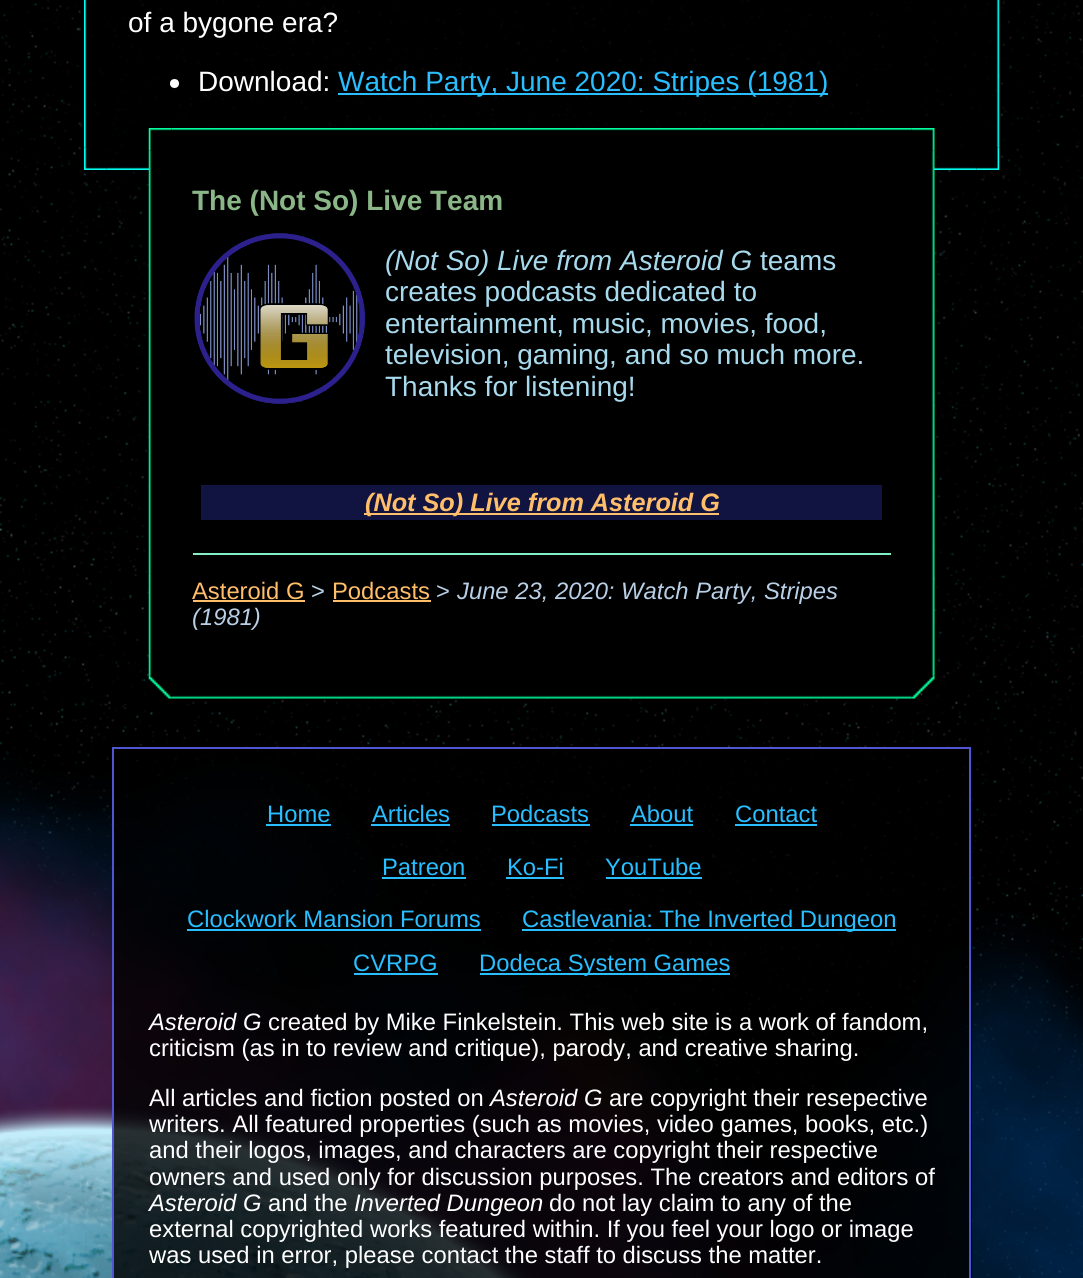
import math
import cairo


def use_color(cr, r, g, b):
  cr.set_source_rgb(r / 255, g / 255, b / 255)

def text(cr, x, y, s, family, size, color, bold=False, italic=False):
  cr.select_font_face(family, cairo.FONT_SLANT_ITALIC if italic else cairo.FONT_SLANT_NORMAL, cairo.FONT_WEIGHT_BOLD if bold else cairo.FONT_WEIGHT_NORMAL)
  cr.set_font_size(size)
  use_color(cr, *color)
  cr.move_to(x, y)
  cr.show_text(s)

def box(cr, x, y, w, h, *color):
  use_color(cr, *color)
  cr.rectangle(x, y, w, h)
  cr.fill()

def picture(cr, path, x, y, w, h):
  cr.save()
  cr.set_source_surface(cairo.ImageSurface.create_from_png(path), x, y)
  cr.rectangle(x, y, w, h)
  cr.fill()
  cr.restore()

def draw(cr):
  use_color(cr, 255, 255, 255)
  cr.paint()
  picture(cr, "img_01.png", 0, 0, 1083, 1278)
  picture(cr, "img_02.png", 0, 757, 1083, 521)
  cr.set_source_rgba(0, 0, 0, 0.8)
  cr.rectangle(105, 0, 873, 149)
  cr.fill()
  picture(cr, "img_03.png", 84, 0, 916, 170)
  use_color(cr, 255, 255, 255)
  cr.arc(174.5, 83.5, 4.5, 0, 2 * math.pi)
  cr.fill()
  box(cr, 338, 93, 490, 2, 40, 190, 255)
  box(cr, 170, 149, 744, 528, 0, 0, 0)
  picture(cr, "img_04.png", 148, 128, 787, 571)
  picture(cr, "img_05.png", 194, 233, 171, 171)
  box(cr, 201, 485, 681, 35, 17, 19, 64)
  box(cr, 364, 513, 355, 2, 255, 190, 105)
  box(cr, 193, 553, 698, 2, 131, 239, 198)
  box(cr, 193, 600, 112, 2, 255, 190, 105)
  box(cr, 333, 600, 98, 2, 255, 190, 105)
  cr.set_source_rgba(0, 0, 0, 0.8)
  cr.rectangle(114, 747, 858, 531)
  cr.fill()
  cr.rectangle(113, 748, 857, 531)
  use_color(cr, 80, 86, 210)
  cr.stroke()
  box(cr, 266, 824, 65, 2, 40, 190, 255)
  box(cr, 371, 824, 79, 2, 40, 190, 255)
  box(cr, 492, 824, 98, 2, 40, 190, 255)
  box(cr, 630, 824, 63, 2, 40, 190, 255)
  box(cr, 735, 824, 82, 2, 40, 190, 255)
  box(cr, 382, 877, 84, 2, 40, 190, 255)
  box(cr, 506, 877, 58, 2, 40, 190, 255)
  box(cr, 606, 877, 96, 2, 40, 190, 255)
  box(cr, 187, 929, 294, 2, 40, 190, 255)
  box(cr, 522, 929, 374, 2, 40, 190, 255)
  box(cr, 354, 973, 84, 2, 40, 190, 255)
  box(cr, 480, 973, 250, 2, 40, 190, 255)
  text(cr, 128, 32, "of a bygone era?", "Liberation Sans", 28, (255, 255, 255))
  text(cr, 198, 91, "Download:", "Liberation Sans", 28, (255, 255, 255))
  text(cr, 338, 91, "Watch Party, June 2020: Stripes (1981)", "Liberation Sans", 28, (40, 190, 255))
  text(cr, 192, 210, "The (Not So) Live Team", "Liberation Sans", 28, (139, 182, 135), bold=True)
  text(cr, 385, 270, "(Not So) Live from Asteroid G", "Liberation Sans", 28, (167, 218, 237), italic=True)
  text(cr, 760, 270, "teams", "Liberation Sans", 28, (167, 218, 237))
  text(cr, 385, 301, "creates podcasts dedicated to", "Liberation Sans", 28, (167, 218, 237))
  text(cr, 385, 333, "entertainment, music, movies, food,", "Liberation Sans", 28, (167, 218, 237))
  text(cr, 385, 364, "television, gaming, and so much more.", "Liberation Sans", 28, (167, 218, 237))
  text(cr, 385, 396, "Thanks for listening!", "Liberation Sans", 28, (167, 218, 237))
  text(cr, 365, 511, "(Not So) Live from Asteroid G", "Liberation Sans", 25.25, (255, 190, 105), bold=True, italic=True)
  text(cr, 192, 599, "Asteroid G", "Liberation Sans", 23.8, (255, 190, 105))
  text(cr, 311, 599, ">", "Liberation Sans", 23.8, (184, 207, 230))
  text(cr, 332, 599, "Podcasts", "Liberation Sans", 23.8, (255, 190, 105))
  text(cr, 436, 599, ">", "Liberation Sans", 23.8, (184, 207, 230))
  text(cr, 457, 599, "June 23, 2020: Watch Party, Stripes", "Liberation Sans", 23.8, (184, 207, 230), italic=True)
  text(cr, 192, 625, "(1981)", "Liberation Sans", 23.8, (184, 207, 230), italic=True)
  text(cr, 267, 822, "Home", "Liberation Sans", 23.8, (40, 190, 255))
  text(cr, 372, 822, "Articles", "Liberation Sans", 23.8, (40, 190, 255))
  text(cr, 491, 822, "Podcasts", "Liberation Sans", 23.8, (40, 190, 255))
  text(cr, 631, 822, "About", "Liberation Sans", 23.8, (40, 190, 255))
  text(cr, 735, 822, "Contact", "Liberation Sans", 23.8, (40, 190, 255))
  text(cr, 382, 875, "Patreon", "Liberation Sans", 23.8, (40, 190, 255))
  text(cr, 507, 875, "Ko-Fi", "Liberation Sans", 23.8, (40, 190, 255))
  text(cr, 605, 875, "YouTube", "Liberation Sans", 23.8, (40, 190, 255))
  text(cr, 187, 927, "Clockwork Mansion Forums", "Liberation Sans", 23.8, (40, 190, 255))
  text(cr, 522, 927, "Castlevania: The Inverted Dungeon", "Liberation Sans", 23.8, (40, 190, 255))
  text(cr, 353, 971, "CVRPG", "Liberation Sans", 23.8, (40, 190, 255))
  text(cr, 479, 971, "Dodeca System Games", "Liberation Sans", 23.8, (40, 190, 255))
  text(cr, 149, 1030, "Asteroid G", "Liberation Sans", 23.8, (255, 255, 255), italic=True)
  text(cr, 268, 1030, "created by Mike Finkelstein. This web site is a work of fandom,", "Liberation Sans", 23.8, (255, 255, 255))
  text(cr, 149, 1056, "criticism (as in to review and critique), parody, and creative sharing.", "Liberation Sans", 23.8, (255, 255, 255))
  text(cr, 149, 1106, "All articles and fiction posted on", "Liberation Sans", 23.8, (255, 255, 255))
  text(cr, 490, 1106, "Asteroid G", "Liberation Sans", 23.8, (255, 255, 255), italic=True)
  text(cr, 609, 1106, "are copyright their resepective", "Liberation Sans", 23.8, (255, 255, 255))
  text(cr, 149, 1132, "writers. All featured properties (such as movies, video games, books, etc.)", "Liberation Sans", 23.8, (255, 255, 255))
  text(cr, 149, 1158, "and their logos, images, and characters are copyright their respective", "Liberation Sans", 23.8, (255, 255, 255))
  text(cr, 149, 1185, "owners and used only for discussion purposes. The creators and editors of", "Liberation Sans", 23.8, (255, 255, 255))
  text(cr, 149, 1211, "Asteroid G", "Liberation Sans", 23.8, (255, 255, 255), italic=True)
  text(cr, 268, 1211, "and the", "Liberation Sans", 23.8, (255, 255, 255))
  text(cr, 354, 1211, "Inverted Dungeon", "Liberation Sans", 23.8, (255, 255, 255), italic=True)
  text(cr, 549, 1211, "do not lay claim to any of the", "Liberation Sans", 23.8, (255, 255, 255))
  text(cr, 149, 1237, "external copyrighted works featured within. If you feel your logo or image", "Liberation Sans", 23.8, (255, 255, 255))
  text(cr, 149, 1263, "was used in error, please contact the staff to discuss the matter.", "Liberation Sans", 23.8, (255, 255, 255))


surface = cairo.ImageSurface(cairo.FORMAT_RGB24, 1083, 1278)
cr = cairo.Context(surface)
options = cairo.FontOptions()
options.set_hint_metrics(cairo.HINT_METRICS_OFF)
options.set_hint_style(cairo.HINT_STYLE_NONE)
cr.set_font_options(options)
cr.set_miter_limit(4)
draw(cr)
surface.write_to_png("out.png")
